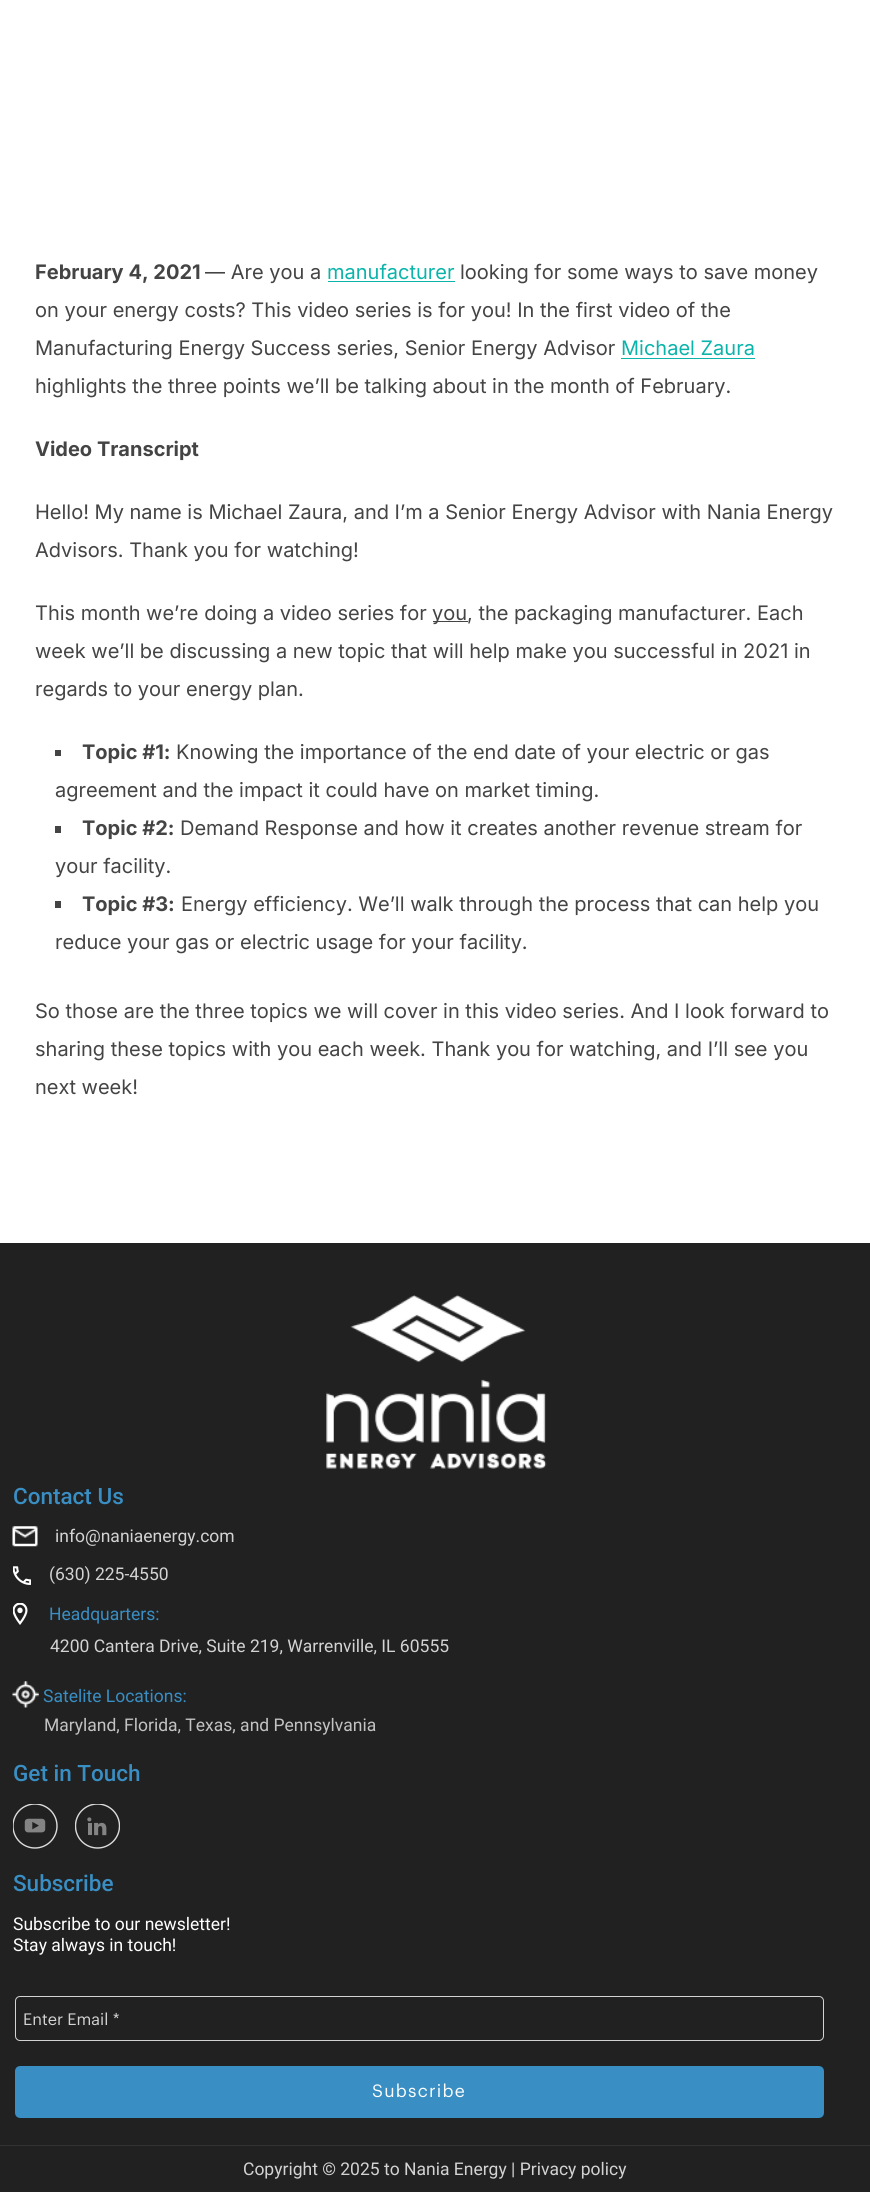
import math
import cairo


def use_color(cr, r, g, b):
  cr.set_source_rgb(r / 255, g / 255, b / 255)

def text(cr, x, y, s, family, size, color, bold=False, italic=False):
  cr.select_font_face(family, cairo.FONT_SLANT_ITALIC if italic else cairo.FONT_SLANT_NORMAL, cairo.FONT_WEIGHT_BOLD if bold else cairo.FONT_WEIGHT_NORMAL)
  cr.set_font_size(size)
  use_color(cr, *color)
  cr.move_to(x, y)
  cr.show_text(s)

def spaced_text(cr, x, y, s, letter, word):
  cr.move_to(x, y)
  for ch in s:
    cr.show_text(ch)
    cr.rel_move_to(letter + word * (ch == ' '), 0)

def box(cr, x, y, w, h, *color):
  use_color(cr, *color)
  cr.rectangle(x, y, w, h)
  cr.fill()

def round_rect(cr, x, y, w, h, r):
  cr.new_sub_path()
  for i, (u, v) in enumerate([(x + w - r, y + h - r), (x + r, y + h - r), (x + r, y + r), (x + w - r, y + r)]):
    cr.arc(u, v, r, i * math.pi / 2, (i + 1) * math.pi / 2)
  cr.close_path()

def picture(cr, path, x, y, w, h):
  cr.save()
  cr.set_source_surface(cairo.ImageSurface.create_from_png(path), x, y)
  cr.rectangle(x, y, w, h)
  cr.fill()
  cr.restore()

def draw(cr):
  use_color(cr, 255, 255, 255)
  cr.paint()
  box(cr, 328, 281, 127, 1, 11, 180, 170)
  box(cr, 621, 358, 134, 1, 11, 180, 170)
  box(cr, 433, 621, 35, 1, 68, 68, 68)
  box(cr, 55, 750, 6, 6, 68, 68, 68)
  box(cr, 55, 826, 6, 7, 68, 68, 68)
  box(cr, 55, 901, 6, 7, 68, 68, 68)
  box(cr, 0, 1243, 870, 902, 33, 33, 33)
  picture(cr, "img_01.png", 326, 1295, 221, 174)
  picture(cr, "img_02.png", 12, 1526, 26, 21)
  picture(cr, "img_03.png", 13, 1566, 18, 19)
  picture(cr, "img_04.png", 13, 1603, 15, 22)
  picture(cr, "img_05.png", 12, 1681, 27, 27)
  picture(cr, "img_06.png", 13, 1804, 45, 45)
  picture(cr, "img_07.png", 75, 1804, 45, 45)
  round_rect(cr, 15.5, 1996.5, 808, 44, 4.5)
  use_color(cr, 211, 211, 211)
  cr.set_line_width(1)
  cr.stroke()
  use_color(cr, 57, 142, 195)
  round_rect(cr, 16.5, 2067.5, 806, 49, 3.5)
  cr.fill_preserve()
  cr.set_line_width(3)
  cr.stroke()
  box(cr, 0, 2146, 870, 46, 33, 33, 33)
  box(cr, 0, 2145, 870, 1, 50, 50, 50)
  text(cr, 35, 279, "February 4, 2021", "Inter", 20, (68, 68, 68), bold=True)
  text(cr, 205, 279, "— Are you a", "Inter", 20, (68, 68, 68))
  text(cr, 327, 279, "manufacturer", "Inter", 20, (11, 180, 170))
  text(cr, 460, 279, "looking for some ways to save money", "Inter", 20, (68, 68, 68))
  text(cr, 35, 317, "on your energy costs? This video series is for you! In the first video of the", "Inter", 20, (68, 68, 68))
  text(cr, 35, 355, "Manufacturing Energy Success series, Senior Energy Advisor", "Inter", 20, (68, 68, 68))
  text(cr, 621, 355, "Michael Zaura", "Inter", 20, (11, 180, 170))
  text(cr, 35, 393, "highlights the three points we’ll be talking about in the month of February.", "Inter", 20, (68, 68, 68))
  text(cr, 35, 456, "Video Transcript", "Inter", 20, (68, 68, 68), bold=True)
  text(cr, 35, 519, "Hello! My name is Michael Zaura, and I’m a Senior Energy Advisor with Nania Energy", "Inter", 20, (68, 68, 68))
  text(cr, 35, 557, "Advisors. Thank you for watching!", "Inter", 20, (68, 68, 68))
  text(cr, 35, 620, "This month we’re doing a video series for", "Inter", 20, (68, 68, 68))
  text(cr, 432, 620, "you, the packaging manufacturer. Each", "Inter", 20, (68, 68, 68))
  text(cr, 35, 658, "week we’ll be discussing a new topic that will help make you successful in 2021 in", "Inter", 20, (68, 68, 68))
  text(cr, 35, 696, "regards to your energy plan.", "Inter", 20, (68, 68, 68))
  text(cr, 82, 759, "Topic #1:", "Inter", 20, (68, 68, 68), bold=True)
  text(cr, 176, 759, "Knowing the importance of the end date of your electric or gas", "Inter", 20, (68, 68, 68))
  text(cr, 55, 797, "agreement and the impact it could have on market timing.", "Inter", 20, (68, 68, 68))
  text(cr, 82, 835, "Topic #2:", "Inter", 20, (68, 68, 68), bold=True)
  text(cr, 180, 835, "Demand Response and how it creates another revenue stream for", "Inter", 20, (68, 68, 68))
  text(cr, 55, 873, "your facility.", "Inter", 20, (68, 68, 68))
  text(cr, 82, 911, "Topic #3:", "Inter", 20, (68, 68, 68), bold=True)
  text(cr, 181, 911, "Energy efficiency. We’ll walk through the process that can help you", "Inter", 20, (68, 68, 68))
  text(cr, 55, 949, "reduce your gas or electric usage for your facility.", "Inter", 20, (68, 68, 68))
  text(cr, 35, 1018, "So those are the three topics we will cover in this video series. And I look forward to", "Inter", 20, (68, 68, 68))
  text(cr, 35, 1056, "sharing these topics with you each week. Thank you for watching, and I’ll see you", "Inter", 20, (68, 68, 68))
  text(cr, 35, 1094, "next week!", "Inter", 20, (68, 68, 68))
  text(cr, 13, 1504, "Contact Us", "Roboto Medium", 22.5, (57, 142, 195))
  text(cr, 55, 1542, "info@naniaenergy.com", "Roboto", 17.5, (211, 211, 211))
  text(cr, 49, 1580, "(630) 225-4550", "Roboto", 17.5, (211, 211, 211))
  text(cr, 49, 1620, "Headquarters:", "Roboto", 17.5, (57, 142, 195))
  text(cr, 50, 1652, "4200 Cantera Drive, Suite 219, Warrenville, IL 60555", "Roboto", 17.5, (211, 211, 211))
  text(cr, 43, 1702, "Satelite Locations:", "Roboto", 17.5, (57, 142, 195))
  text(cr, 44, 1731, "Maryland, Florida, Texas, and Pennsylvania", "Roboto", 17.5, (195, 195, 195))
  text(cr, 13, 1781, "Get in Touch", "Roboto Medium", 22.5, (57, 142, 195))
  text(cr, 13, 1891, "Subscribe", "Roboto Medium", 22.5, (57, 142, 195))
  text(cr, 13, 1930, "Subscribe to our newsletter!", "Roboto", 17.5, (255, 255, 255))
  text(cr, 13, 1951, "Stay always in touch!", "Roboto", 17.5, (255, 255, 255))
  text(cr, 23, 2025, "Enter Email *", "Graphik", 16.25, (211, 211, 211))
  cr.set_font_size(17.5)
  use_color(cr, 255, 255, 255)
  spaced_text(cr, 372, 2097, "Subscribe", 1.25, 0)
  text(cr, 243, 2175, "Copyright © 2025 to Nania Energy | Privacy policy", "Roboto", 17.5, (211, 211, 211))


surface = cairo.ImageSurface(cairo.FORMAT_RGB24, 870, 2192)
cr = cairo.Context(surface)
options = cairo.FontOptions()
options.set_hint_metrics(cairo.HINT_METRICS_OFF)
options.set_hint_style(cairo.HINT_STYLE_NONE)
cr.set_font_options(options)
cr.set_miter_limit(4)
draw(cr)
surface.write_to_png("out.png")
